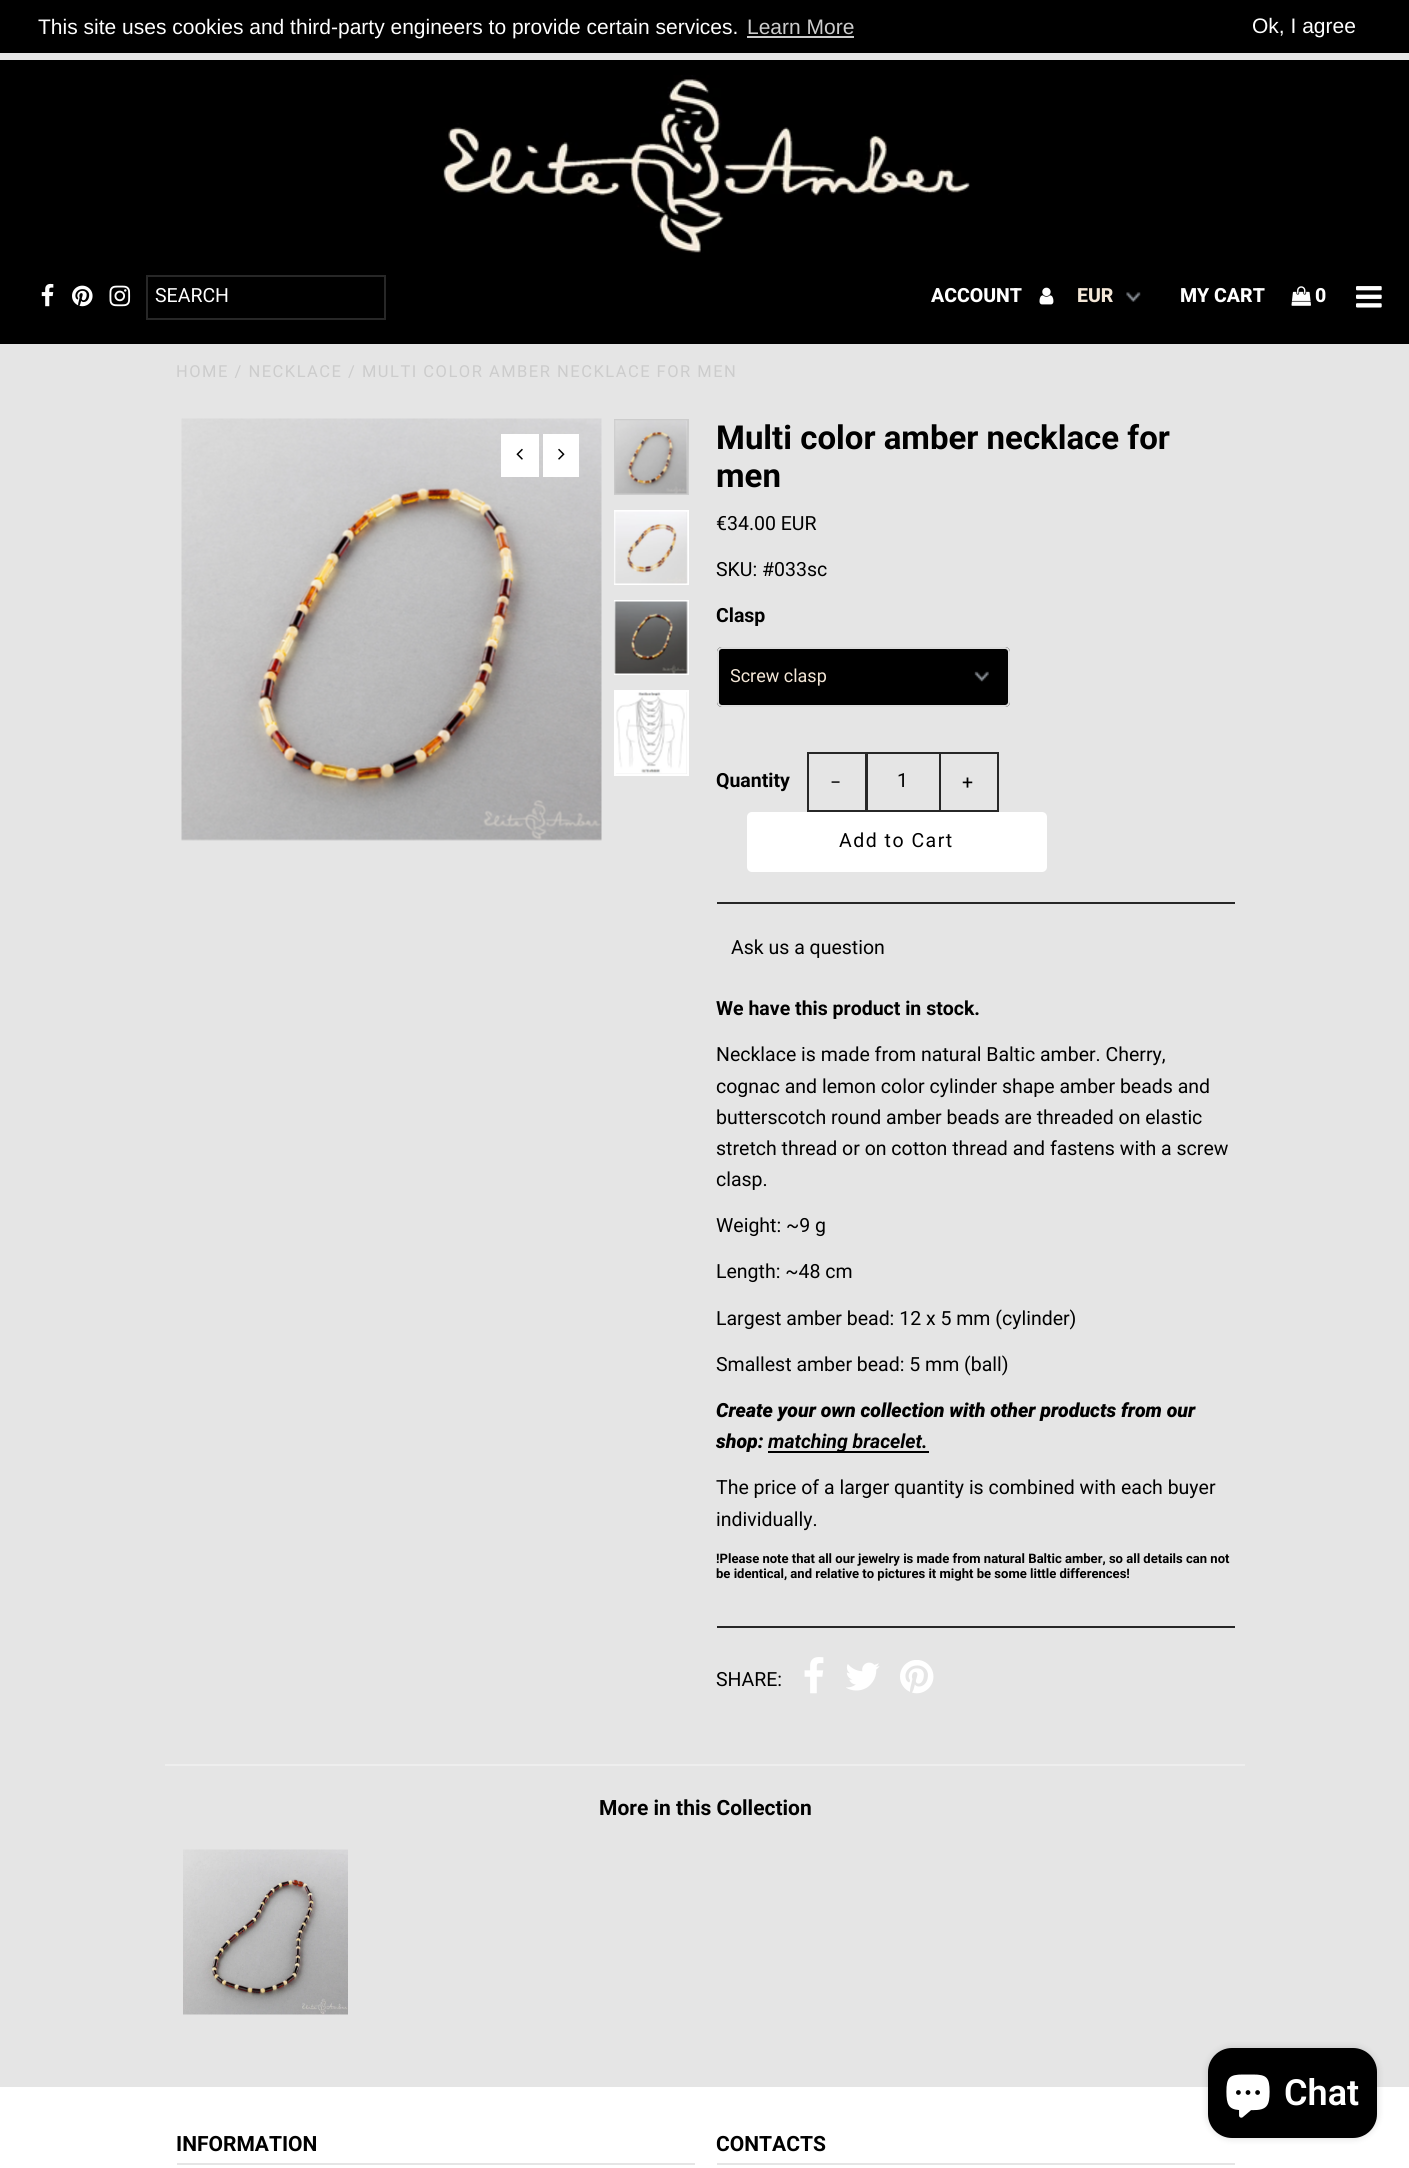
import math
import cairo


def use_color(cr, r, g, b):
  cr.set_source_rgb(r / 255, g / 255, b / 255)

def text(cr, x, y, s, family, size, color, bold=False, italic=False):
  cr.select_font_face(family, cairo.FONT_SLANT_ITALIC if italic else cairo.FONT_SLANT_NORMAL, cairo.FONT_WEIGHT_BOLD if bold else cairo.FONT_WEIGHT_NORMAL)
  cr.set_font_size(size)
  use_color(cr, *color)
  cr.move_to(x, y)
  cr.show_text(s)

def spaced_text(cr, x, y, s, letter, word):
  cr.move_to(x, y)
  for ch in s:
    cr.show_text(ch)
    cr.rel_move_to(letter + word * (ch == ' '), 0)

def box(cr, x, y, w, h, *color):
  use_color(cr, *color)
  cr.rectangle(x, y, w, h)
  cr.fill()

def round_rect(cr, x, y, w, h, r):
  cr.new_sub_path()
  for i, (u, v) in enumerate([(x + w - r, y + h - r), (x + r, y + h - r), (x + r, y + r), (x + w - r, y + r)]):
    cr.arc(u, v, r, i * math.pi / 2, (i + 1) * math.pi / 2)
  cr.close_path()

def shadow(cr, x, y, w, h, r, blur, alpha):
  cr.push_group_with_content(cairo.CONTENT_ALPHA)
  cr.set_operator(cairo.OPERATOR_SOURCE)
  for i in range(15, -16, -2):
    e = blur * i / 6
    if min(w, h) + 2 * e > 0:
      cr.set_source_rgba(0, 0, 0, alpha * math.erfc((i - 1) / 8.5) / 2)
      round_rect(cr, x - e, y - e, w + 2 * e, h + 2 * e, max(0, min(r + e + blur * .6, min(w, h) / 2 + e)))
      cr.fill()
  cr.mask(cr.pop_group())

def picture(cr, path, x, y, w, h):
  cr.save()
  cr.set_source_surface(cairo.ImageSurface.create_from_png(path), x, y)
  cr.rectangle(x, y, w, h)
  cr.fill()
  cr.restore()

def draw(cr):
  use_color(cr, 229, 229, 229)
  cr.paint()
  box(cr, 0, 0, 1409, 53, 0, 0, 0)
  box(cr, 747, 36, 107, 2, 204, 204, 204)
  box(cr, 0, 60, 1409, 284, 0, 0, 0)
  picture(cr, "img_01.png", 443, 75, 527, 178)
  picture(cr, "img_02.png", 41, 283, 13, 24)
  picture(cr, "img_03.png", 72, 285, 21, 22)
  picture(cr, "img_04.png", 109, 285, 22, 22)
  cr.rectangle(147, 276, 238, 43)
  use_color(cr, 39, 39, 39)
  cr.stroke()
  picture(cr, "img_05.png", 1039, 287, 15, 18)
  picture(cr, "img_06.png", 1126, 292, 15, 10)
  picture(cr, "img_07.png", 1291, 286, 20, 20)
  picture(cr, "img_08.png", 1356, 286, 26, 22)
  picture(cr, "img_09.png", 181, 418, 421, 423)
  box(cr, 501, 434, 38, 43, 255, 255, 255)
  picture(cr, "img_10.png", 516, 448, 7, 12)
  box(cr, 543, 434, 36, 43, 255, 255, 255)
  picture(cr, "img_11.png", 558, 448, 7, 12)
  cr.rectangle(615, 420, 73, 74)
  use_color(cr, 204, 204, 204)
  cr.stroke()
  picture(cr, "img_12.png", 614, 420, 74, 74)
  cr.rectangle(615, 511, 73, 73)
  use_color(cr, 255, 255, 255)
  cr.stroke()
  picture(cr, "img_13.png", 614, 511, 74, 73)
  cr.rectangle(615, 601, 73, 73)
  cr.stroke()
  picture(cr, "img_14.png", 614, 601, 74, 73)
  cr.rectangle(615, 691, 73, 84)
  cr.stroke()
  picture(cr, "img_15.png", 616, 692, 71, 82)
  box(cr, 717, 902, 518, 2, 39, 39, 39)
  use_color(cr, 0, 0, 0)
  round_rect(cr, 717, 647, 293, 60, 5)
  cr.fill()
  picture(cr, "img_16.png", 974, 671, 15, 11)
  round_rect(cr, 718, 648, 291, 58, 4)
  use_color(cr, 221, 221, 221)
  cr.stroke()
  cr.rectangle(808, 753, 58, 58)
  use_color(cr, 39, 39, 39)
  cr.stroke()
  cr.rectangle(867, 753, 73, 58)
  cr.stroke()
  cr.rectangle(940, 753, 58, 58)
  cr.stroke()
  use_color(cr, 255, 255, 255)
  round_rect(cr, 747, 812, 300, 60, 5)
  cr.fill()
  box(cr, 768, 1451, 161, 2, 0, 0, 0)
  box(cr, 717, 1626, 518, 2, 39, 39, 39)
  picture(cr, "img_17.png", 804, 1657, 20, 37)
  picture(cr, "img_18.png", 846, 1662, 34, 29)
  picture(cr, "img_19.png", 900, 1660, 34, 34)
  box(cr, 165, 1764, 1080, 2, 238, 238, 238)
  picture(cr, "img_20.png", 183, 1849, 165, 166)
  box(cr, 0, 2087, 1409, 81, 255, 255, 255)
  box(cr, 177, 2163, 518, 2, 229, 229, 229)
  box(cr, 717, 2163, 518, 2, 229, 229, 229)
  use_color(cr, 0, 0, 0)
  shadow(cr, 1208, 2048, 169, 90, 24, 4, 0.15)
  use_color(cr, 0, 0, 0)
  round_rect(cr, 1208, 2048, 169, 90, 24)
  cr.fill()
  picture(cr, "img_21.png", 1226, 2074, 44, 44)
  text(cr, 38, 34, "This site uses cookies and third-party engineers to provide certain services.", "Liberation Sans", 21, (255, 255, 255))
  text(cr, 747, 34, "Learn More", "Liberation Sans", 21, (204, 204, 204))
  text(cr, 1252, 33, "Ok, I agree", "Liberation Sans", 21, (255, 255, 255))
  text(cr, 155, 302, "SEARCH", "Roboto", 19.5, (255, 255, 255))
  text(cr, 931, 302, "ACCOUNT", "Roboto ExtraBold", 19.5, (255, 255, 255))
  text(cr, 1077, 302, "EUR", "Roboto ExtraBold", 19.5, (244, 231, 215))
  text(cr, 1180, 302, "MY CART", "Roboto ExtraBold", 19.5, (255, 255, 255))
  text(cr, 1315, 302, "0", "Roboto ExtraBold", 19.5, (255, 255, 255))
  cr.select_font_face("Roboto")
  cr.set_font_size(16.5)
  use_color(cr, 204, 204, 204)
  spaced_text(cr, 176, 377, "HOME / NECKLACE / MULTI COLOR AMBER NECKLACE FOR MEN", 1.5, 0)
  text(cr, 716, 449, "Multi color amber necklace for", "Roboto", 33, (0, 0, 0), bold=True)
  text(cr, 716, 487, "men", "Roboto", 33, (0, 0, 0), bold=True)
  text(cr, 716, 530, "€34.00 EUR", "Roboto", 19.5, (0, 0, 0))
  text(cr, 716, 576, "SKU: #033sc", "Roboto", 19.5, (0, 0, 0))
  text(cr, 716, 622, "Clasp", "Roboto", 19.5, (0, 0, 0), bold=True)
  cr.save()
  cr.rectangle(731, 666, 277, 21)
  cr.clip()
  text(cr, 730, 682, "Screw clasp", "Roboto", 18, (244, 231, 215))
  cr.restore()
  text(cr, 716, 787, "Quantity", "Roboto", 19.5, (0, 0, 0), bold=True)
  cr.select_font_face("Roboto")
  spaced_text(cr, 830, 789, "−", 1.5, 0)
  text(cr, 897, 787, "1", "Roboto", 19.5, (0, 0, 0))
  spaced_text(cr, 962, 789, "+", 1.5, 0)
  spaced_text(cr, 839, 847, "Add to Cart", 1.5, 0)
  text(cr, 731, 954, "Ask us a question", "Roboto", 19.5, (0, 0, 0))
  text(cr, 716, 1015, "We have this product in stock.", "Roboto", 19.5, (0, 0, 0), bold=True)
  text(cr, 716, 1061, "Necklace is made from natural Baltic amber. Cherry,", "Roboto", 19.5, (0, 0, 0))
  text(cr, 716, 1093, "cognac and lemon color cylinder shape amber beads and", "Roboto", 19.5, (0, 0, 0))
  text(cr, 716, 1124, "butterscotch round amber beads are threaded on elastic", "Roboto", 19.5, (0, 0, 0))
  text(cr, 716, 1155, "stretch thread or on cotton thread and fastens with a screw", "Roboto", 19.5, (0, 0, 0))
  text(cr, 716, 1186, "clasp.", "Roboto", 19.5, (0, 0, 0))
  text(cr, 716, 1232, "Weight: ~9 g", "Roboto", 19.5, (0, 0, 0))
  text(cr, 716, 1278, "Length: ~48 cm", "Roboto", 19.5, (0, 0, 0))
  text(cr, 716, 1325, "Largest amber bead: 12 x 5 mm (cylinder)", "Roboto", 19.5, (0, 0, 0))
  text(cr, 716, 1371, "Smallest amber bead: 5 mm (ball)", "Roboto", 19.5, (0, 0, 0))
  text(cr, 716, 1417, "Create your own collection with other products from our", "Roboto Black", 19.5, (0, 0, 0), italic=True)
  text(cr, 716, 1448, "shop:", "Roboto Black", 19.5, (0, 0, 0), italic=True)
  text(cr, 768, 1448, "matching bracelet.", "Roboto", 19.5, (0, 0, 0), bold=True, italic=True)
  text(cr, 716, 1494, "The price of a larger quantity is combined with each buyer", "Roboto", 19.5, (0, 0, 0))
  text(cr, 716, 1526, "individually.", "Roboto", 19.5, (0, 0, 0))
  text(cr, 716, 1563, "!Please note that all our jewelry is made from natural Baltic amber, so all details can not", "Roboto", 13.05, (0, 0, 0), bold=True)
  text(cr, 716, 1578, "be identical, and relative to pictures it might be some little differences!", "Roboto", 13.05, (0, 0, 0), bold=True)
  text(cr, 716, 1686, "SHARE:", "Roboto", 19.5, (0, 0, 0))
  text(cr, 599, 1815, "More in this Collection", "Roboto", 21, (0, 0, 0), bold=True)
  text(cr, 176, 2151, "INFORMATION", "Roboto", 21, (0, 0, 0), bold=True)
  text(cr, 716, 2151, "CONTACTS", "Roboto", 21, (0, 0, 0), bold=True)
  text(cr, 1284, 2105, "Chat", "Roboto SemiBold", 36, (255, 255, 255))


surface = cairo.ImageSurface(cairo.FORMAT_RGB24, 1409, 2168)
cr = cairo.Context(surface)
options = cairo.FontOptions()
options.set_hint_metrics(cairo.HINT_METRICS_OFF)
options.set_hint_style(cairo.HINT_STYLE_NONE)
cr.set_font_options(options)
cr.set_miter_limit(4)
draw(cr)
surface.write_to_png("out.png")
